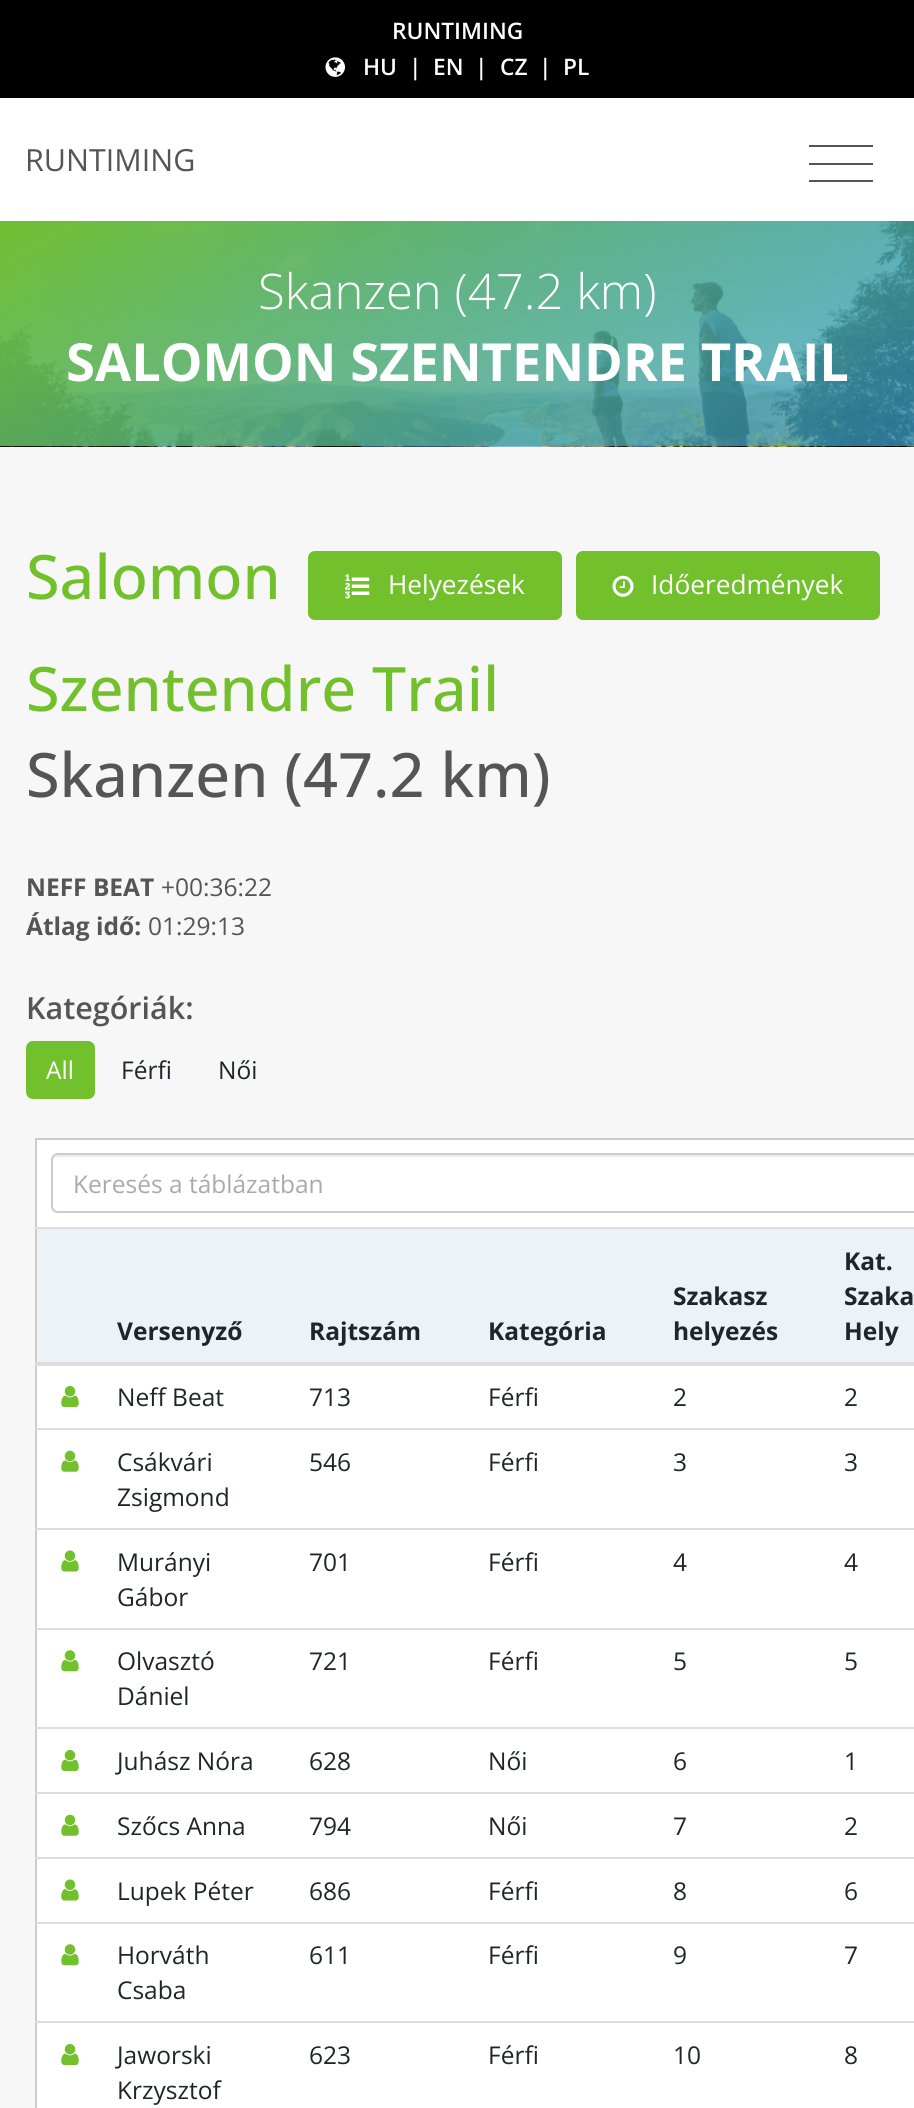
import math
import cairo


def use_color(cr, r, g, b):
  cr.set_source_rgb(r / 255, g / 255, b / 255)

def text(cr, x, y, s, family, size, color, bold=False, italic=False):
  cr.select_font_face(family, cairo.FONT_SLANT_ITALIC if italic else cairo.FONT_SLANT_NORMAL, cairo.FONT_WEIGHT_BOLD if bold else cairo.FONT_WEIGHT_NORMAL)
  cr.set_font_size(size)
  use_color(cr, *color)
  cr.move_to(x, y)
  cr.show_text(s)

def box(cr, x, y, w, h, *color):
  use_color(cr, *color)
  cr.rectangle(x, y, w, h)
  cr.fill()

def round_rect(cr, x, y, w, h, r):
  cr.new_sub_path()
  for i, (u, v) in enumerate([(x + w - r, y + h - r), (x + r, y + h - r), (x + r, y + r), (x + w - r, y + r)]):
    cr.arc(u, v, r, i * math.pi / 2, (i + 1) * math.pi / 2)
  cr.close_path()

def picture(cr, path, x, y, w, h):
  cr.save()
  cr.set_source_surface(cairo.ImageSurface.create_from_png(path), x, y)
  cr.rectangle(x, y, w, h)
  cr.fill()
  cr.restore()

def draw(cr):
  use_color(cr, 247, 247, 247)
  cr.paint()
  box(cr, 0, 0, 914, 98, 0, 0, 0)
  picture(cr, "img_01.png", 325, 57, 20, 20)
  box(cr, 0, 98, 914, 123, 255, 255, 255)
  box(cr, 809, 145, 64, 2, 85, 85, 85)
  box(cr, 809, 163, 64, 2, 85, 85, 85)
  box(cr, 809, 180, 64, 2, 85, 85, 85)
  picture(cr, "img_02.png", 0, 221, 914, 226)
  use_color(cr, 114, 192, 44)
  round_rect(cr, 308, 551, 254, 69, 7)
  cr.fill()
  picture(cr, "img_03.png", 345, 574, 25, 25)
  round_rect(cr, 576, 551, 304, 69, 7)
  cr.fill()
  picture(cr, "img_04.png", 612, 575, 22, 22)
  round_rect(cr, 27, 1042, 67, 56, 6)
  cr.fill_preserve()
  cr.stroke()
  use_color(cr, 255, 255, 255)
  cr.rectangle(36, 1139, 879, 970)
  cr.fill_preserve()
  use_color(cr, 204, 204, 204)
  cr.stroke()
  use_color(cr, 236, 236, 236)
  cr.new_path()
  cr.move_to(58, 1157)
  cr.line_to(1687, 1157)
  cr.line_to(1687, 1155)
  cr.line_to(58, 1155)
  cr.curve_to(56, 1155, 53, 1157, 53, 1159)
  cr.curve_to(54, 1158, 56, 1157, 58, 1157)
  cr.close_path()
  cr.fill()
  cr.new_path()
  cr.move_to(58, 1154)
  cr.line_to(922, 1154)
  cr.line_to(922, 1212)
  cr.line_to(58, 1212)
  cr.curve_to(54.5, 1212, 52, 1209.5, 52, 1206)
  cr.line_to(52, 1160)
  cr.curve_to(52, 1156.5, 54.5, 1154, 58, 1154)
  cr.close_path()
  use_color(cr, 204, 204, 204)
  cr.stroke()
  box(cr, 37, 1229, 877, 133, 235, 242, 248)
  box(cr, 35, 1227, 879, 2, 221, 221, 221)
  box(cr, 35, 1362, 879, 4, 221, 221, 221)
  picture(cr, "img_05.png", 61, 1386, 18, 21)
  picture(cr, "img_06.png", 61, 1450, 18, 22)
  box(cr, 35, 1428, 879, 2, 221, 221, 221)
  picture(cr, "img_07.png", 61, 1550, 18, 22)
  box(cr, 35, 1528, 879, 2, 221, 221, 221)
  picture(cr, "img_08.png", 61, 1650, 18, 22)
  box(cr, 35, 1628, 879, 2, 221, 221, 221)
  picture(cr, "img_05.png", 61, 1750, 18, 21)
  box(cr, 35, 1727, 879, 2, 221, 221, 221)
  picture(cr, "img_06.png", 61, 1814, 18, 22)
  box(cr, 35, 1792, 879, 2, 221, 221, 221)
  picture(cr, "img_07.png", 61, 1879, 18, 22)
  box(cr, 35, 1857, 879, 2, 221, 221, 221)
  picture(cr, "img_08.png", 61, 1944, 18, 22)
  box(cr, 35, 1922, 879, 2, 221, 221, 221)
  picture(cr, "img_05.png", 61, 2044, 18, 21)
  box(cr, 35, 2021, 879, 2, 221, 221, 221)
  text(cr, 392, 39, "RUNTIMING", "Open Sans SemiBold", 22.75, (255, 255, 255))
  text(cr, 363, 75, "HU", "Open Sans SemiBold", 22.75, (255, 255, 255))
  text(cr, 409, 75, "|", "Open Sans SemiBold", 22.75, (255, 255, 255))
  text(cr, 433, 75, "EN", "Open Sans SemiBold", 22.75, (255, 255, 255))
  text(cr, 475, 75, "|", "Open Sans SemiBold", 22.75, (255, 255, 255))
  text(cr, 500, 75, "CZ", "Open Sans SemiBold", 22.75, (255, 255, 255))
  text(cr, 539, 75, "|", "Open Sans SemiBold", 22.75, (255, 255, 255))
  text(cr, 563, 75, "PL", "Open Sans SemiBold", 22.75, (255, 255, 255))
  text(cr, 25, 171, "RUNTIMING", "Open Sans", 30.5, (85, 85, 85))
  text(cr, 258, 309, "Skanzen (47.2 km)", "Open Sans Light", 49, (255, 255, 255))
  text(cr, 66, 381, "SALOMON SZENTENDRE TRAIL", "Open Sans", 52.5, (255, 255, 255), bold=True)
  text(cr, 26, 599, "Salomon", "Open Sans Medium", 61.25, (114, 192, 44))
  text(cr, 26, 711, "Szentendre Trail", "Open Sans Medium", 61.25, (114, 192, 44))
  text(cr, 26, 797, "Skanzen (47.2 km)", "Open Sans Medium", 61.25, (85, 85, 85))
  text(cr, 388, 594, "Helyezések", "Open Sans", 26.25, (255, 255, 255))
  text(cr, 651, 594, "Időeredmények", "Open Sans", 26.25, (255, 255, 255))
  text(cr, 26, 896, "NEFF BEAT", "Open Sans", 24.5, (85, 85, 85), bold=True)
  text(cr, 161, 896, "+00:36:22", "Open Sans", 24.5, (85, 85, 85))
  text(cr, 26, 935, "Átlag idő:", "Open Sans", 24.5, (85, 85, 85), bold=True)
  text(cr, 148, 935, "01:29:13", "Open Sans", 24.5, (85, 85, 85))
  text(cr, 26, 1019, "Kategóriák:", "Open Sans SemiBold", 30.5, (85, 85, 85))
  text(cr, 46, 1079, "All", "Open Sans", 24.5, (255, 255, 255))
  text(cr, 121, 1079, "Férfi", "Open Sans", 24.5, (33, 37, 41))
  text(cr, 218, 1079, "Női", "Open Sans", 24.5, (33, 37, 41))
  text(cr, 73, 1193, "Keresés a táblázatban", "Open Sans", 24.5, (170, 170, 170))
  text(cr, 117, 1340, "Versenyző", "Open Sans", 24.5, (33, 37, 41), bold=True)
  text(cr, 309, 1340, "Rajtszám", "Open Sans", 24.5, (33, 37, 41), bold=True)
  text(cr, 488, 1340, "Kategória", "Open Sans", 24.5, (33, 37, 41), bold=True)
  text(cr, 673, 1305, "Szakasz", "Open Sans", 24.5, (33, 37, 41), bold=True)
  text(cr, 673, 1340, "helyezés", "Open Sans", 24.5, (33, 37, 41), bold=True)
  text(cr, 844, 1270, "Kat.", "Open Sans", 24.5, (33, 37, 41), bold=True)
  text(cr, 844, 1305, "Szaka", "Open Sans", 24.5, (33, 37, 41), bold=True)
  text(cr, 844, 1340, "Hely", "Open Sans", 24.5, (33, 37, 41), bold=True)
  text(cr, 117, 1406, "Neff Beat", "Open Sans", 24.5, (33, 37, 41))
  text(cr, 309, 1406, "713", "Open Sans", 24.5, (33, 37, 41))
  text(cr, 488, 1406, "Férfi", "Open Sans", 24.5, (33, 37, 41))
  text(cr, 673, 1406, "2", "Open Sans", 24.5, (33, 37, 41))
  text(cr, 844, 1406, "2", "Open Sans", 24.5, (33, 37, 41))
  text(cr, 117, 1471, "Csákvári", "Open Sans", 24.5, (33, 37, 41))
  text(cr, 117, 1506, "Zsigmond", "Open Sans", 24.5, (33, 37, 41))
  text(cr, 309, 1471, "546", "Open Sans", 24.5, (33, 37, 41))
  text(cr, 488, 1471, "Férfi", "Open Sans", 24.5, (33, 37, 41))
  text(cr, 673, 1471, "3", "Open Sans", 24.5, (33, 37, 41))
  text(cr, 844, 1471, "3", "Open Sans", 24.5, (33, 37, 41))
  text(cr, 117, 1571, "Murányi", "Open Sans", 24.5, (33, 37, 41))
  text(cr, 117, 1606, "Gábor", "Open Sans", 24.5, (33, 37, 41))
  text(cr, 309, 1571, "701", "Open Sans", 24.5, (33, 37, 41))
  text(cr, 488, 1571, "Férfi", "Open Sans", 24.5, (33, 37, 41))
  text(cr, 673, 1571, "4", "Open Sans", 24.5, (33, 37, 41))
  text(cr, 844, 1571, "4", "Open Sans", 24.5, (33, 37, 41))
  text(cr, 117, 1670, "Olvasztó", "Open Sans", 24.5, (33, 37, 41))
  text(cr, 117, 1705, "Dániel", "Open Sans", 24.5, (33, 37, 41))
  text(cr, 309, 1670, "721", "Open Sans", 24.5, (33, 37, 41))
  text(cr, 488, 1670, "Férfi", "Open Sans", 24.5, (33, 37, 41))
  text(cr, 673, 1670, "5", "Open Sans", 24.5, (33, 37, 41))
  text(cr, 844, 1670, "5", "Open Sans", 24.5, (33, 37, 41))
  text(cr, 117, 1770, "Juhász Nóra", "Open Sans", 24.5, (33, 37, 41))
  text(cr, 309, 1770, "628", "Open Sans", 24.5, (33, 37, 41))
  text(cr, 488, 1770, "Női", "Open Sans", 24.5, (33, 37, 41))
  text(cr, 673, 1770, "6", "Open Sans", 24.5, (33, 37, 41))
  text(cr, 844, 1770, "1", "Open Sans", 24.5, (33, 37, 41))
  text(cr, 117, 1835, "Szőcs Anna", "Open Sans", 24.5, (33, 37, 41))
  text(cr, 309, 1835, "794", "Open Sans", 24.5, (33, 37, 41))
  text(cr, 488, 1835, "Női", "Open Sans", 24.5, (33, 37, 41))
  text(cr, 673, 1835, "7", "Open Sans", 24.5, (33, 37, 41))
  text(cr, 844, 1835, "2", "Open Sans", 24.5, (33, 37, 41))
  text(cr, 117, 1900, "Lupek Péter", "Open Sans", 24.5, (33, 37, 41))
  text(cr, 309, 1900, "686", "Open Sans", 24.5, (33, 37, 41))
  text(cr, 488, 1900, "Férfi", "Open Sans", 24.5, (33, 37, 41))
  text(cr, 673, 1900, "8", "Open Sans", 24.5, (33, 37, 41))
  text(cr, 844, 1900, "6", "Open Sans", 24.5, (33, 37, 41))
  text(cr, 117, 1964, "Horváth", "Open Sans", 24.5, (33, 37, 41))
  text(cr, 117, 1999, "Csaba", "Open Sans", 24.5, (33, 37, 41))
  text(cr, 309, 1964, "611", "Open Sans", 24.5, (33, 37, 41))
  text(cr, 488, 1964, "Férfi", "Open Sans", 24.5, (33, 37, 41))
  text(cr, 673, 1964, "9", "Open Sans", 24.5, (33, 37, 41))
  text(cr, 844, 1964, "7", "Open Sans", 24.5, (33, 37, 41))
  text(cr, 117, 2064, "Jaworski", "Open Sans", 24.5, (33, 37, 41))
  text(cr, 117, 2099, "Krzysztof", "Open Sans", 24.5, (33, 37, 41))
  text(cr, 309, 2064, "623", "Open Sans", 24.5, (33, 37, 41))
  text(cr, 488, 2064, "Férfi", "Open Sans", 24.5, (33, 37, 41))
  text(cr, 673, 2064, "10", "Open Sans", 24.5, (33, 37, 41))
  text(cr, 844, 2064, "8", "Open Sans", 24.5, (33, 37, 41))


surface = cairo.ImageSurface(cairo.FORMAT_RGB24, 914, 2108)
cr = cairo.Context(surface)
options = cairo.FontOptions()
options.set_hint_metrics(cairo.HINT_METRICS_OFF)
options.set_hint_style(cairo.HINT_STYLE_NONE)
cr.set_font_options(options)
cr.set_miter_limit(4)
draw(cr)
surface.write_to_png("out.png")
